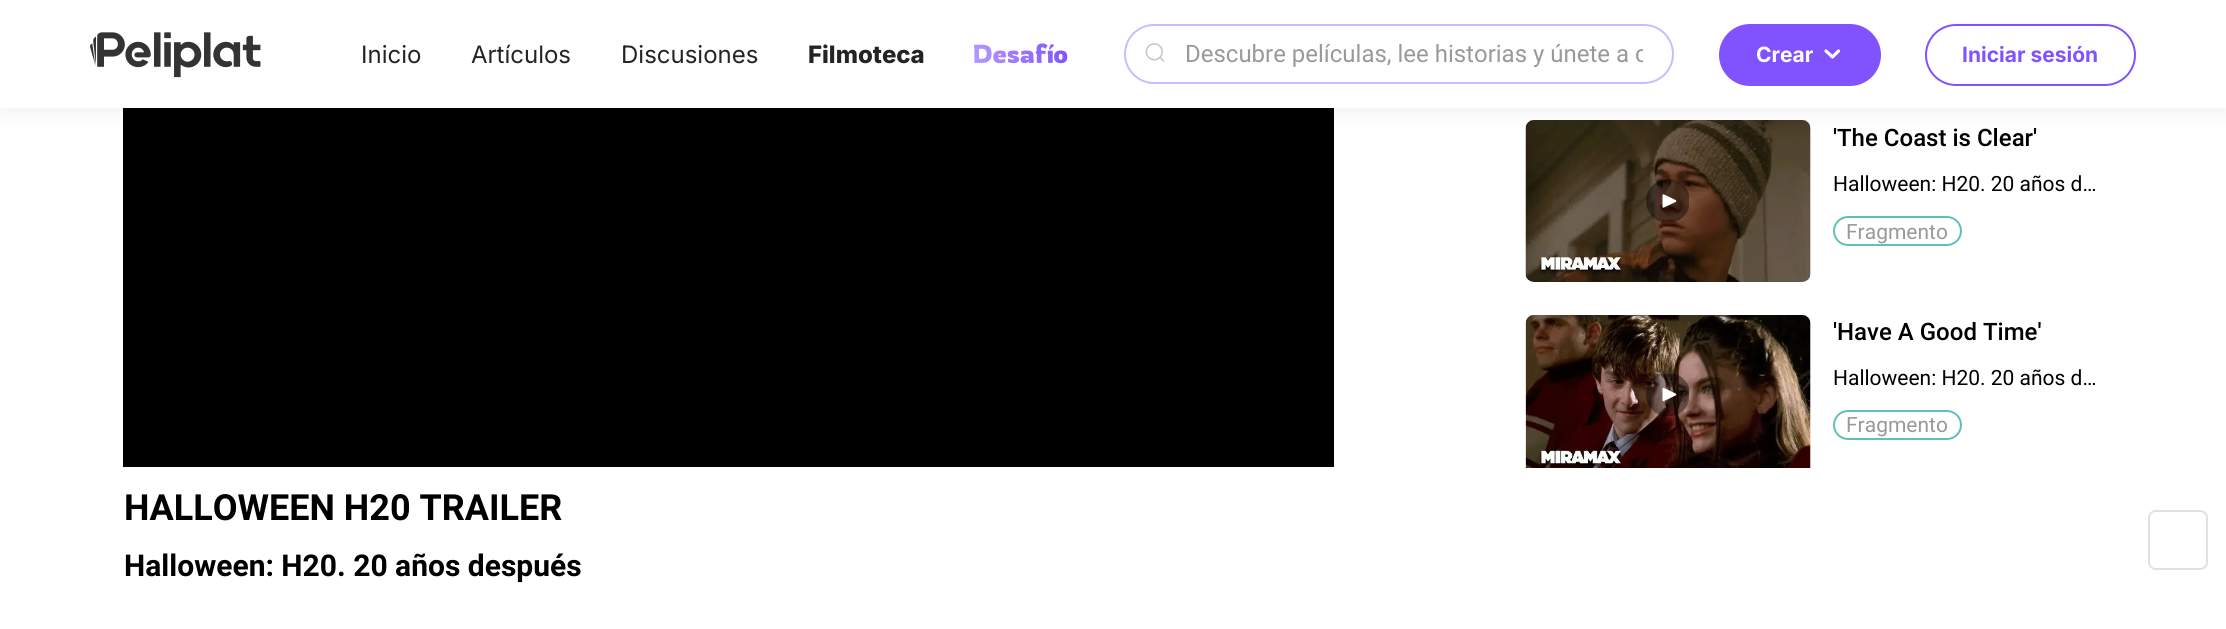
import math
import cairo


def use_color(cr, r, g, b):
  cr.set_source_rgb(r / 255, g / 255, b / 255)

def text(cr, x, y, s, family, size, color, bold=False, italic=False):
  cr.select_font_face(family, cairo.FONT_SLANT_ITALIC if italic else cairo.FONT_SLANT_NORMAL, cairo.FONT_WEIGHT_BOLD if bold else cairo.FONT_WEIGHT_NORMAL)
  cr.set_font_size(size)
  use_color(cr, *color)
  cr.move_to(x, y)
  cr.show_text(s)

def box(cr, x, y, w, h, *color):
  use_color(cr, *color)
  cr.rectangle(x, y, w, h)
  cr.fill()

def round_rect(cr, x, y, w, h, r):
  cr.new_sub_path()
  for i, (u, v) in enumerate([(x + w - r, y + h - r), (x + r, y + h - r), (x + r, y + r), (x + w - r, y + r)]):
    cr.arc(u, v, r, i * math.pi / 2, (i + 1) * math.pi / 2)
  cr.close_path()

def shadow(cr, x, y, w, h, r, blur, alpha):
  cr.push_group_with_content(cairo.CONTENT_ALPHA)
  cr.set_operator(cairo.OPERATOR_SOURCE)
  for i in range(15, -16, -2):
    e = blur * i / 6
    if min(w, h) + 2 * e > 0:
      cr.set_source_rgba(0, 0, 0, alpha * math.erfc((i - 1) / 8.5) / 2)
      round_rect(cr, x - e, y - e, w + 2 * e, h + 2 * e, max(0, min(r + e + blur * .6, min(w, h) / 2 + e)))
      cr.fill()
  cr.mask(cr.pop_group())

def picture(cr, path, x, y, w, h):
  cr.save()
  cr.set_source_surface(cairo.ImageSurface.create_from_png(path), x, y)
  cr.rectangle(x, y, w, h)
  cr.fill()
  cr.restore()

def draw(cr):
  use_color(cr, 255, 255, 255)
  cr.paint()
  use_color(cr, 245, 245, 245)
  round_rect(cr, 1526, 120, 285, 162, 8)
  cr.fill()
  picture(cr, "img_04.png", 1525, 120, 286, 162)
  box(cr, 123, 108, 1211, 359, 0, 0, 0)
  use_color(cr, 0, 0, 0)
  shadow(cr, 0, 6, 2226, 108, 0, 10.5, 0.05)
  box(cr, 0, 0, 2226, 108, 255, 255, 255)
  picture(cr, "img_01.png", 90, 32, 171, 46)
  picture(cr, "img_02.png", 974, 43, 94, 21)
  round_rect(cr, 1125, 25, 548, 58, 29)
  use_color(cr, 205, 187, 255)
  cr.stroke()
  picture(cr, "img_03.png", 1145, 43, 20, 19)
  use_color(cr, 129, 83, 254)
  round_rect(cr, 1720, 25, 160, 60, 30)
  cr.fill_preserve()
  cr.stroke()
  cr.new_path()
  cr.move_to(1838.5, 51)
  cr.line_to(1832.5, 57)
  cr.line_to(1826, 51)
  use_color(cr, 255, 255, 255)
  cr.set_line_width(3.2)
  cr.set_line_cap(cairo.LINE_CAP_ROUND)
  cr.set_line_join(cairo.LINE_JOIN_ROUND)
  cr.stroke()
  round_rect(cr, 1926, 25, 209, 60, 30)
  use_color(cr, 129, 83, 254)
  cr.set_line_width(2)
  cr.set_line_cap(cairo.LINE_CAP_BUTT)
  cr.set_line_join(cairo.LINE_JOIN_MITER)
  cr.stroke()
  cr.save()
  cr.rectangle(1646, 179, 43, 43)
  cr.clip()
  cr.set_source_rgba(0, 0, 0, 0.4)
  cr.arc(1668, 201, 22, 0, 2 * math.pi)
  cr.fill()
  cr.restore()
  use_color(cr, 255, 255, 255)
  cr.set_fill_rule(cairo.FILL_RULE_EVEN_ODD)
  cr.new_path()
  cr.move_to(1675.5, 200)
  cr.curve_to(1676.5, 200.5, 1676.5, 201.5, 1675.5, 202)
  cr.line_to(1664, 207.5)
  cr.curve_to(1663.5, 208, 1662.5, 207.5, 1662.5, 207)
  cr.line_to(1662.5, 195)
  cr.curve_to(1662.5, 194.5, 1663.5, 194, 1664, 194.5)
  cr.close_path()
  cr.fill()
  round_rect(cr, 1834, 217, 127, 28, 14)
  use_color(cr, 97, 191, 186)
  cr.stroke()
  use_color(cr, 245, 245, 245)
  cr.new_path()
  cr.move_to(1534, 315)
  cr.line_to(1803, 315)
  cr.curve_to(1807.5, 315, 1811, 318.5, 1811, 323)
  cr.line_to(1811, 468)
  cr.line_to(1526, 468)
  cr.line_to(1526, 323)
  cr.curve_to(1526, 318.5, 1529.5, 315, 1534, 315)
  cr.close_path()
  cr.fill()
  picture(cr, "img_05.png", 1525, 315, 286, 153)
  cr.save()
  cr.set_fill_rule(cairo.FILL_RULE_WINDING)
  cr.rectangle(1646, 374, 43, 42)
  cr.clip()
  cr.set_source_rgba(0, 0, 0, 0.4)
  cr.arc(1668, 394.5, 22, 0, 2 * math.pi)
  cr.fill()
  cr.restore()
  use_color(cr, 255, 255, 255)
  cr.new_path()
  cr.move_to(1675.5, 393.5)
  cr.curve_to(1676.5, 394, 1676.5, 395, 1675.5, 395.5)
  cr.line_to(1664, 401)
  cr.curve_to(1663.5, 401.5, 1662.5, 401, 1662.5, 400.5)
  cr.line_to(1662.5, 388.5)
  cr.curve_to(1662.5, 388, 1663.5, 387.5, 1664, 388)
  cr.close_path()
  cr.fill()
  round_rect(cr, 1834, 411, 127, 28, 14)
  use_color(cr, 97, 191, 186)
  cr.stroke()
  round_rect(cr, 2149, 511, 58, 58, 7)
  use_color(cr, 225, 225, 225)
  cr.stroke()
  text(cr, 361, 63, "Inicio", "Inter", 24, (36, 36, 36))
  text(cr, 471, 63, "Artículos", "Inter", 24, (36, 36, 36))
  text(cr, 621, 63, "Discusiones", "Inter", 24, (36, 36, 36))
  text(cr, 808, 63, "Filmoteca", "Inter ExtraBold", 24, (36, 36, 36))
  cr.save()
  cr.set_fill_rule(cairo.FILL_RULE_WINDING)
  cr.rectangle(1185, 39, 458, 29)
  cr.clip()
  text(cr, 1185, 62, "Descubre películas, lee historias y únete a c", "Roboto", 24, (153, 153, 153))
  cr.restore()
  text(cr, 1756, 62, "Crear", "Inter", 21, (255, 255, 255), bold=True)
  text(cr, 1962, 62, "Iniciar sesión", "Inter", 21, (129, 83, 254), bold=True)
  text(cr, 1833, 146, "'The Coast is Clear'", "Roboto Medium", 24, (0, 0, 0))
  text(cr, 1833, 191, "Halloween: H20. 20 años d…", "Roboto", 21, (0, 0, 0))
  text(cr, 1846, 239, "Fragmento", "Roboto", 21, (153, 153, 153))
  text(cr, 1833, 340, "'Have A Good Time'", "Roboto Medium", 24, (0, 0, 0))
  text(cr, 1833, 385, "Halloween: H20. 20 años d…", "Roboto", 21, (0, 0, 0))
  text(cr, 1846, 432, "Fragmento", "Roboto", 21, (153, 153, 153))
  text(cr, 124, 520, "HALLOWEEN H20 TRAILER", "Roboto", 36, (0, 0, 0), bold=True)
  text(cr, 124, 576, "Halloween: H20. 20 años después", "Roboto", 30, (0, 0, 0), bold=True)


surface = cairo.ImageSurface(cairo.FORMAT_RGB24, 2226, 629)
cr = cairo.Context(surface)
options = cairo.FontOptions()
options.set_hint_metrics(cairo.HINT_METRICS_OFF)
options.set_hint_style(cairo.HINT_STYLE_NONE)
cr.set_font_options(options)
cr.set_miter_limit(4)
draw(cr)
surface.write_to_png("out.png")
